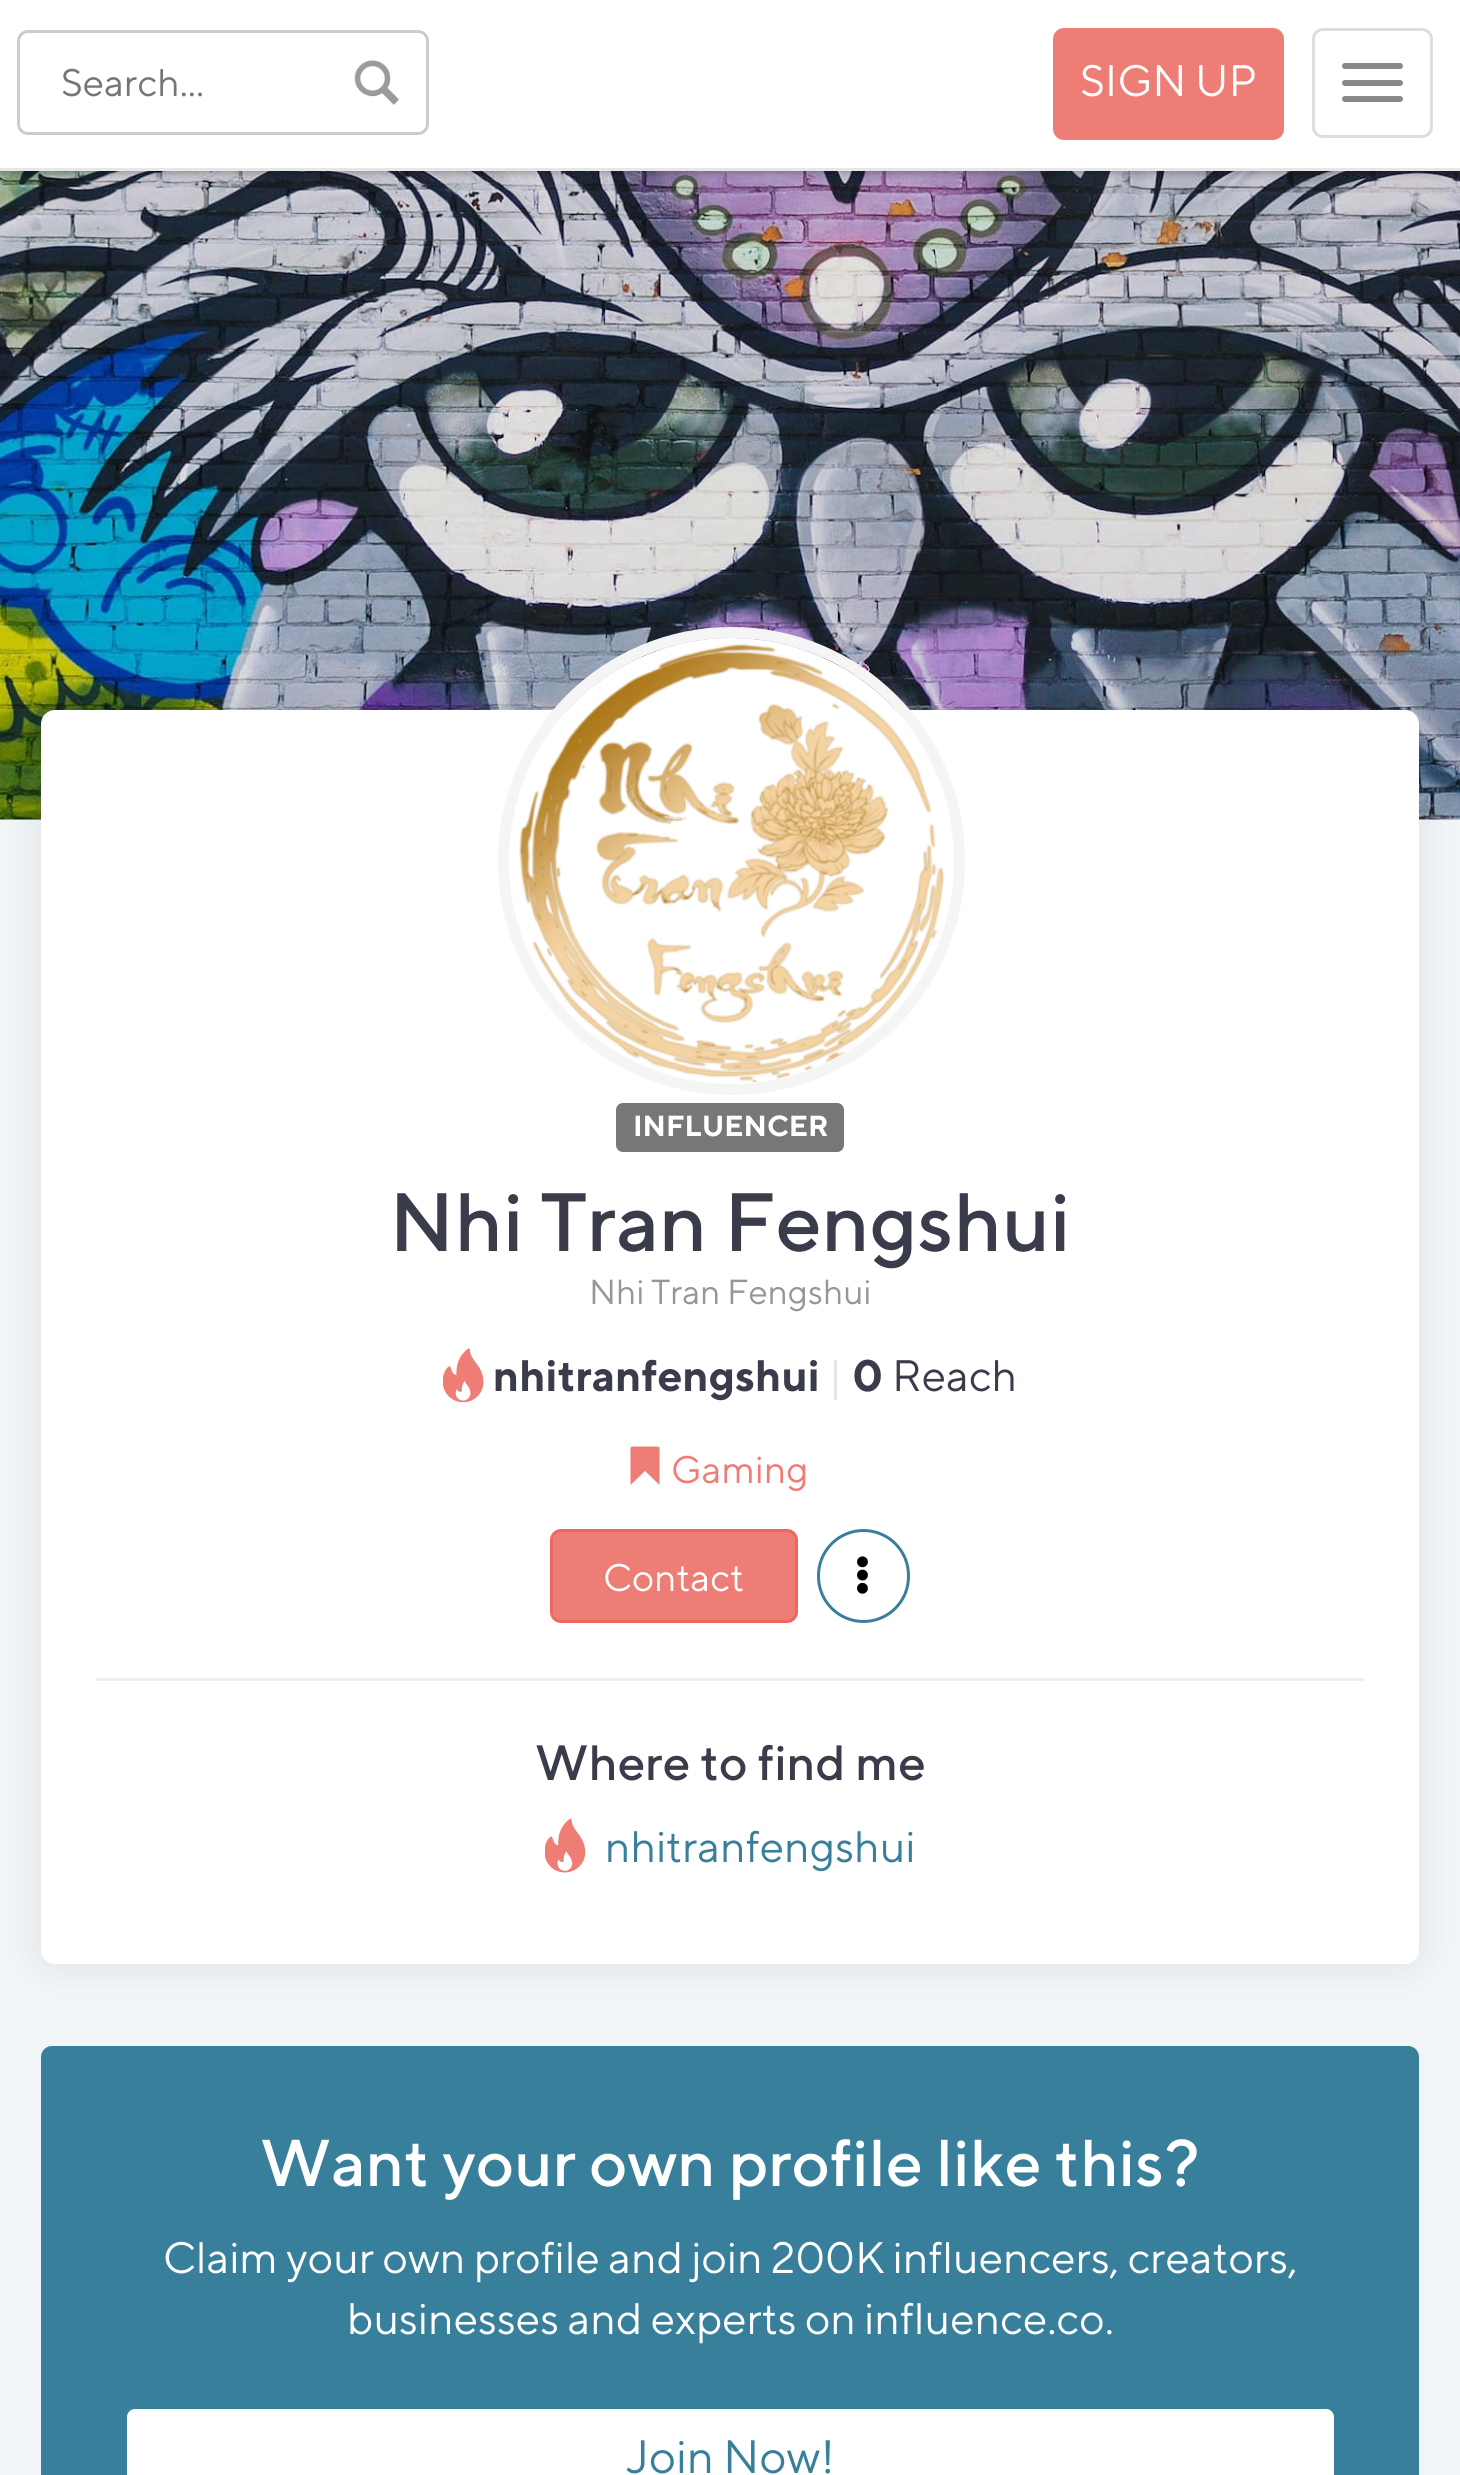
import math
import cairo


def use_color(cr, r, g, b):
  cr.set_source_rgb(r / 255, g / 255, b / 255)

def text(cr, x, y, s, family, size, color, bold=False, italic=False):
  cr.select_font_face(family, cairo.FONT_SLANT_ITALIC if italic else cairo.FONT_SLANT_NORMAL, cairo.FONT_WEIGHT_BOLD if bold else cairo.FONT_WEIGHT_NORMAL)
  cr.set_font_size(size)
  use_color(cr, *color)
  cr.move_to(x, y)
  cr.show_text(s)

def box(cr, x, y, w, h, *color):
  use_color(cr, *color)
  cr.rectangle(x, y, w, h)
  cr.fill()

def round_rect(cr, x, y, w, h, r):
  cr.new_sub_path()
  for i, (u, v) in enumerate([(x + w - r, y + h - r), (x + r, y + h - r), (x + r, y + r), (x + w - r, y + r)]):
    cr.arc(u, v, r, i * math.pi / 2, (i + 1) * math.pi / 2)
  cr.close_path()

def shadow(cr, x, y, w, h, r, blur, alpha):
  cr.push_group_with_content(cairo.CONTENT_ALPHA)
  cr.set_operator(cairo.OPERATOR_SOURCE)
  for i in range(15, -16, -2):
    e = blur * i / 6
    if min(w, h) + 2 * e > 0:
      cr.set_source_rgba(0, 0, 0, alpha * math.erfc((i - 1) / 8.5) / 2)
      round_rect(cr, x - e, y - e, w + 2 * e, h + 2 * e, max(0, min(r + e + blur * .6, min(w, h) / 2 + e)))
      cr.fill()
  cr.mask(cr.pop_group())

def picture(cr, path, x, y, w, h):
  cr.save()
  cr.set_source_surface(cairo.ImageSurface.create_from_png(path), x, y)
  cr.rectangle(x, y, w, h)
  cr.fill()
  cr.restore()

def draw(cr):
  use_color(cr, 242, 245, 247)
  cr.paint()
  picture(cr, "img_02.png", 0, 171, 1460, 649)
  use_color(cr, 0, 0, 0)
  shadow(cr, 0, 3, 1460, 170, 0, 4, 0.3)
  box(cr, 0, 0, 1460, 168, 255, 255, 255)
  box(cr, 0, 168, 1460, 3, 231, 231, 231)
  picture(cr, "img_01.png", 354, 60, 45, 45)
  round_rect(cr, 18.5, 31.5, 409, 102, 9.5)
  use_color(cr, 204, 204, 204)
  cr.set_line_width(3)
  cr.stroke()
  use_color(cr, 238, 125, 118)
  round_rect(cr, 1053, 28, 231, 112, 11)
  cr.fill()
  round_rect(cr, 1313.5, 29.5, 118, 107, 9.5)
  use_color(cr, 221, 221, 221)
  cr.stroke()
  use_color(cr, 136, 136, 136)
  round_rect(cr, 1342, 63, 61, 6, 3)
  cr.fill()
  round_rect(cr, 1342, 80, 61, 6, 3)
  cr.fill()
  round_rect(cr, 1342, 96, 61, 6, 3)
  cr.fill()
  use_color(cr, 0, 0, 0)
  shadow(cr, 41, 710, 1378, 1254, 14, 20.5, 0.08)
  use_color(cr, 255, 255, 255)
  round_rect(cr, 41, 710, 1378, 1254, 14)
  cr.fill()
  round_rect(cr, 503.5, 632.5, 456, 457, 228)
  use_color(cr, 245, 245, 246)
  cr.set_line_width(11)
  cr.stroke()
  picture(cr, "img_03.png", 519, 638, 426, 444)
  use_color(cr, 119, 119, 119)
  round_rect(cr, 616, 1103, 228, 49, 7)
  cr.fill()
  picture(cr, "img_04.png", 443, 1348, 41, 55)
  use_color(cr, 238, 125, 118)
  cr.new_path()
  cr.move_to(632.5, 1446.5)
  cr.line_to(653.5, 1446.5)
  cr.curve_to(661, 1446.5, 659.5, 1446, 659.5, 1454.5)
  cr.line_to(659.5, 1485)
  cr.line_to(645, 1471)
  cr.line_to(630.5, 1485)
  cr.line_to(630.5, 1454.5)
  cr.curve_to(630.5, 1451, 629.5, 1446.5, 632.5, 1446.5)
  cr.close_path()
  cr.fill()
  round_rect(cr, 551.5, 1530.5, 245, 91, 9.5)
  cr.fill_preserve()
  use_color(cr, 235, 103, 95)
  cr.set_line_width(3)
  cr.stroke()
  round_rect(cr, 818.5, 1530.5, 90, 91, 45)
  use_color(cr, 56, 127, 155)
  cr.stroke()
  picture(cr, "img_05.png", 857, 1556, 11, 38)
  box(cr, 96, 1678, 1268, 3, 238, 238, 238)
  picture(cr, "img_06.png", 545, 1818, 41, 55)
  use_color(cr, 56, 127, 155)
  round_rect(cr, 41, 2046, 1378, 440, 11)
  cr.fill()
  use_color(cr, 255, 255, 255)
  round_rect(cr, 125.5, 2407.5, 1210, 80, 9.5)
  cr.fill_preserve()
  use_color(cr, 56, 127, 155)
  cr.stroke()
  text(cr, 61, 96, "Search...", "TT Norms", 38.5, (117, 117, 117))
  text(cr, 1080, 96, "SIGN UP", "TT Norms", 44, (255, 255, 255))
  text(cr, 633, 1136, "INFLUENCER", "TT Norms", 29, (255, 255, 255), bold=True)
  text(cr, 389, 1251, "Nhi Tran Fengshui", "TT Norms Medium", 82.5, (59, 60, 75))
  text(cr, 589, 1304, "Nhi Tran Fengshui", "TT Norms", 34.75, (150, 150, 150))
  text(cr, 493, 1391, "nhitranfengshui", "TT Norms", 44, (59, 60, 75), bold=True)
  text(cr, 828, 1391, "|", "TT Norms", 44, (228, 228, 228))
  text(cr, 852, 1391, "0", "TT Norms", 44, (59, 60, 75), bold=True)
  text(cr, 892, 1391, "Reach", "TT Norms", 44, (59, 60, 75))
  text(cr, 671, 1483, "Gaming", "TT Norms", 38.5, (238, 125, 118))
  text(cr, 603, 1591, "Contact", "TT Norms", 38.5, (255, 255, 255))
  text(cr, 535, 1780, "Where to find me", "TT Norms Medium", 49.5, (59, 60, 75))
  text(cr, 605, 1862, "nhitranfengshui", "TT Norms", 44, (56, 127, 155))
  text(cr, 260, 2186, "Want your own profile like this?", "TT Norms Medium", 66, (255, 255, 255))
  text(cr, 163, 2273, "Claim your own profile and join 200K influencers, creators,", "TT Norms", 44, (255, 255, 255))
  text(cr, 347, 2334, "businesses and experts on influence.co.", "TT Norms", 44, (255, 255, 255))
  text(cr, 626, 2473, "Join Now!", "TT Norms", 46.75, (56, 127, 155))


surface = cairo.ImageSurface(cairo.FORMAT_RGB24, 1460, 2475)
cr = cairo.Context(surface)
options = cairo.FontOptions()
options.set_hint_metrics(cairo.HINT_METRICS_OFF)
options.set_hint_style(cairo.HINT_STYLE_NONE)
cr.set_font_options(options)
cr.set_miter_limit(4)
draw(cr)
surface.write_to_png("out.png")
